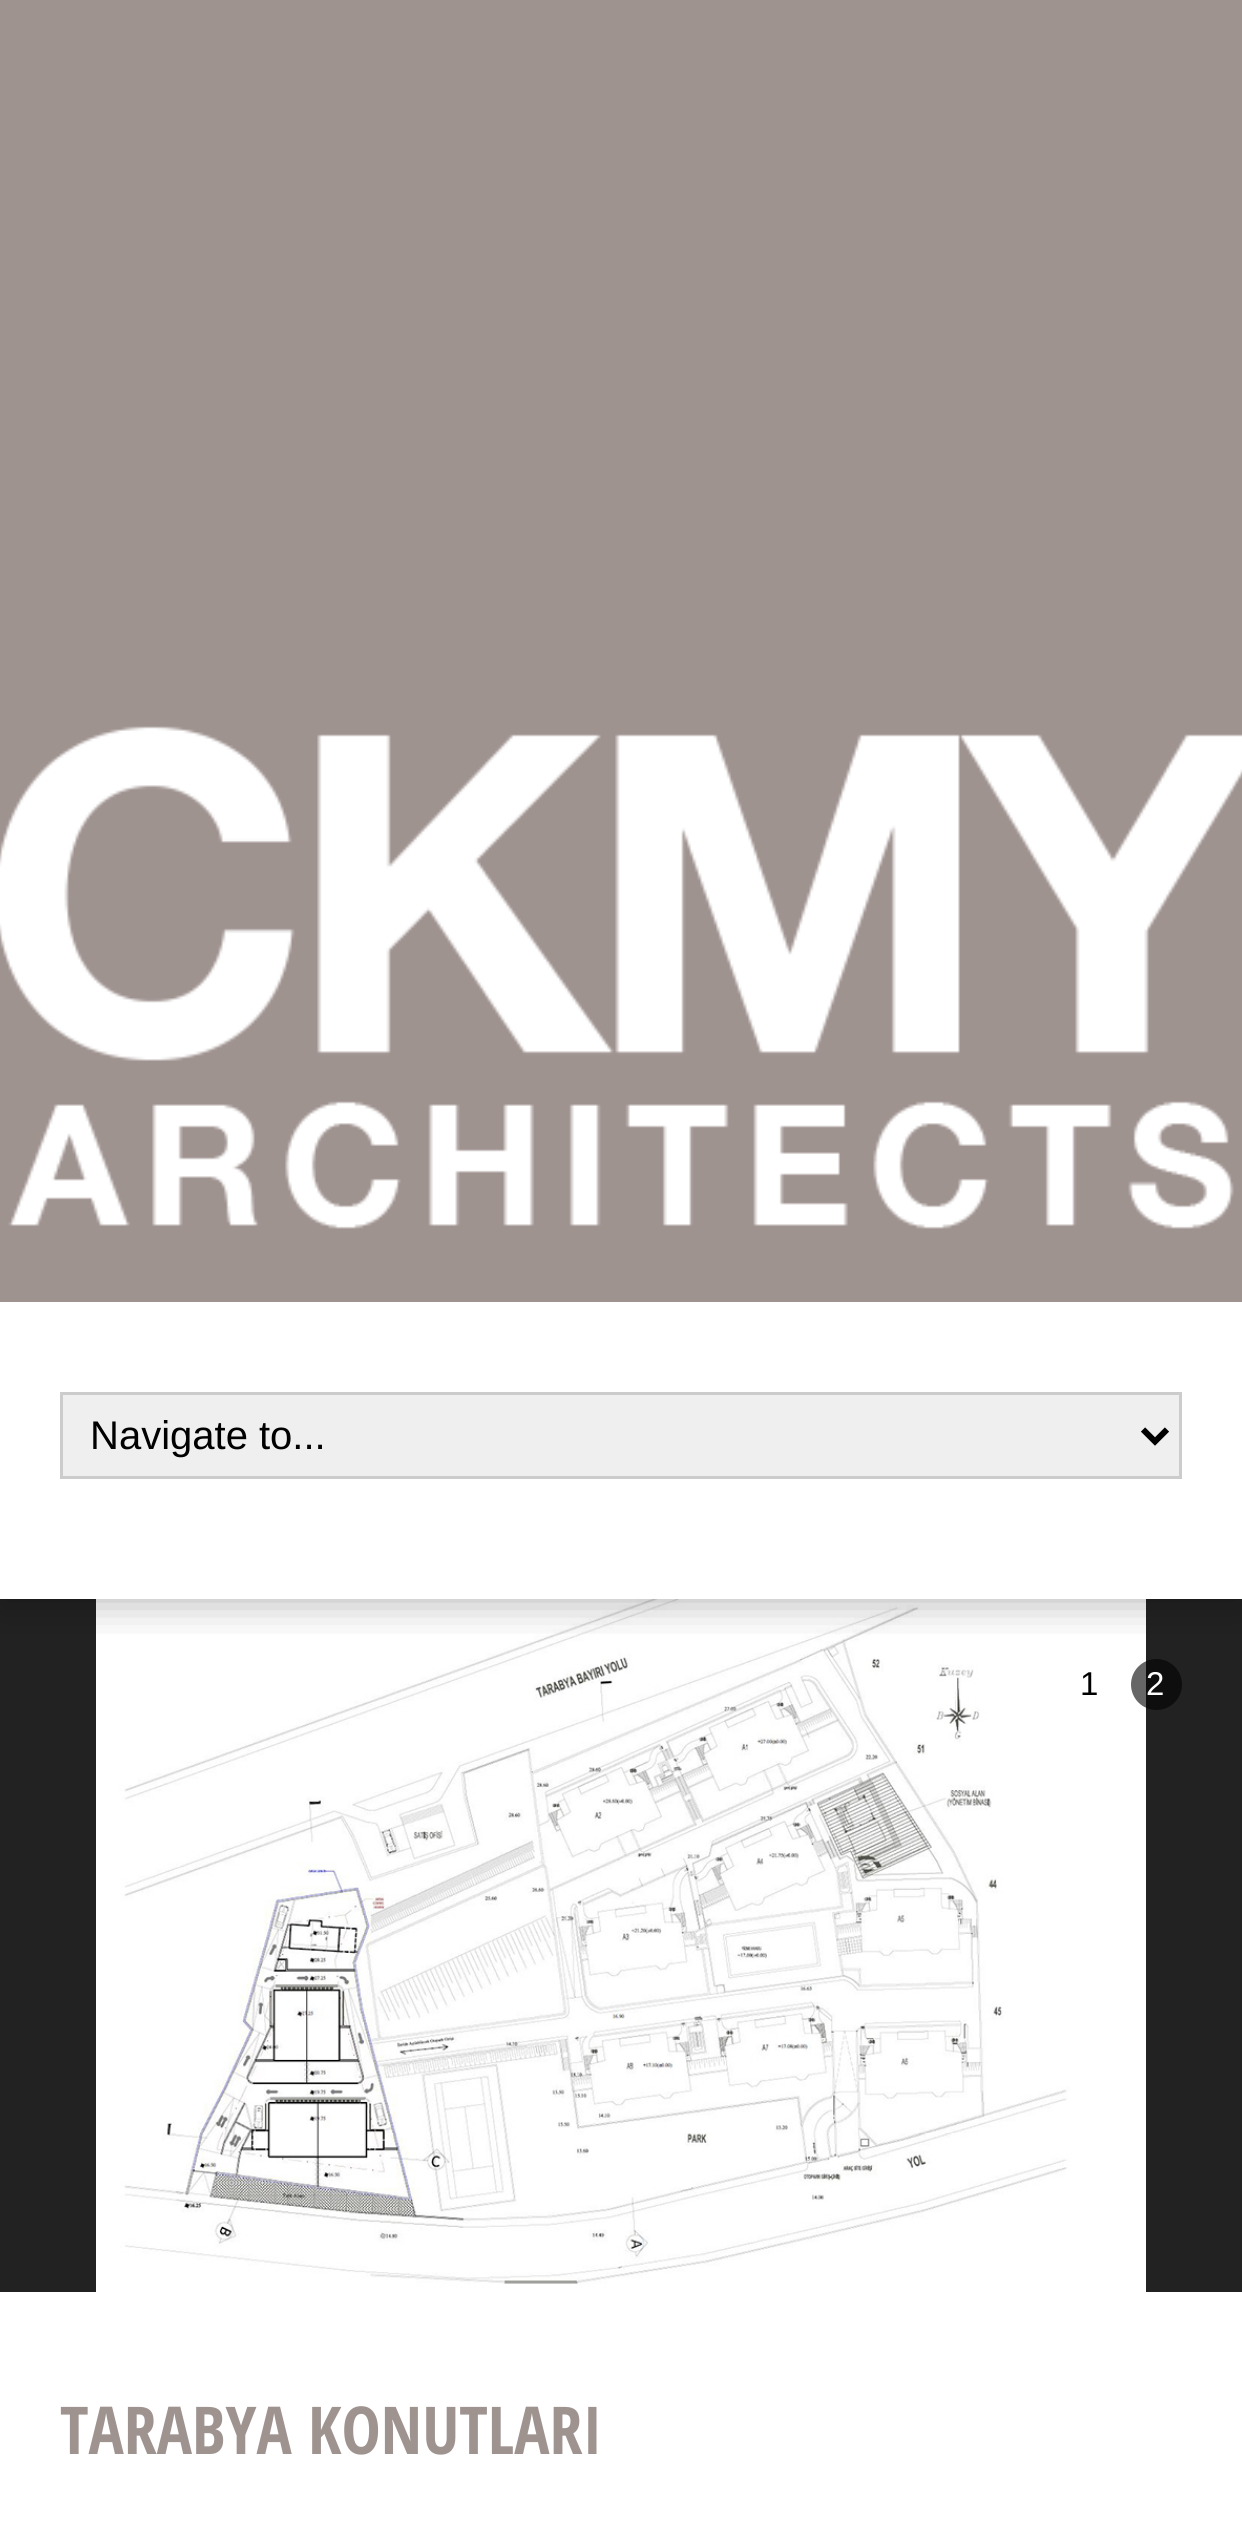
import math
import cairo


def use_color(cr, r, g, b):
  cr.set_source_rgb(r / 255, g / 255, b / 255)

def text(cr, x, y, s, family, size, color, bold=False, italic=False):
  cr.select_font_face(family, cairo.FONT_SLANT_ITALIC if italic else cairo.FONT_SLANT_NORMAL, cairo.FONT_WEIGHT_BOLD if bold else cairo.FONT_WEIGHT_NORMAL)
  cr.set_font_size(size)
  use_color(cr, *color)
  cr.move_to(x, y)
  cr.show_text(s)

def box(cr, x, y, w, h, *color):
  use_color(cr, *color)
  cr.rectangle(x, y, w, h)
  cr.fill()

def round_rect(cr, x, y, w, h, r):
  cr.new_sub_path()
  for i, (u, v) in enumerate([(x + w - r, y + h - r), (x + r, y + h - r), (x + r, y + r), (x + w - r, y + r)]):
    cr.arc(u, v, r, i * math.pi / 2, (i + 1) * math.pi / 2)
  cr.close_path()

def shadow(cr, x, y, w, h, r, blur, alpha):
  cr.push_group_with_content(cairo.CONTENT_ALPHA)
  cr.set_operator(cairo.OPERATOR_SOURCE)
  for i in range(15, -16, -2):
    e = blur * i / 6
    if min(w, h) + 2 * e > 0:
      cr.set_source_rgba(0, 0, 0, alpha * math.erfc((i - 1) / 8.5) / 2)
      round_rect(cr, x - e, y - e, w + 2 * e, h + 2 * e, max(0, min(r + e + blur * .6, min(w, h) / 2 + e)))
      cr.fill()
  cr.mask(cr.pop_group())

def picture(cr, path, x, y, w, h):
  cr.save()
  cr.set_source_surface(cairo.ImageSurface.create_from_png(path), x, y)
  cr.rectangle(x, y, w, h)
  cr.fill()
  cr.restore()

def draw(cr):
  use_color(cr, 255, 255, 255)
  cr.paint()
  box(cr, 0, 1599, 1242, 693, 34, 34, 34)
  picture(cr, "img_02.png", 96, 1599, 1050, 693)
  cr.set_source_rgba(0, 0, 0, 0.6)
  cr.arc(1156.5, 1684.5, 25.5, 0, 2 * math.pi)
  cr.fill()
  cr.save()
  cr.rectangle(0, 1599, 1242, 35)
  cr.clip()
  use_color(cr, 0, 0, 0)
  shadow(cr, 0, 0, 1242, 1599, 0, 22.5, 0.33)
  cr.restore()
  picture(cr, "img_01.png", 0, 0, 1242, 1302)
  use_color(cr, 239, 239, 239)
  cr.rectangle(61.5, 1393.5, 1119, 84)
  cr.fill_preserve()
  use_color(cr, 204, 204, 204)
  cr.set_line_width(3)
  cr.stroke()
  cr.new_path()
  cr.move_to(1143, 1429.5)
  cr.line_to(1155, 1441.5)
  cr.line_to(1167, 1429.5)
  use_color(cr, 0, 0, 0)
  cr.set_line_width(6)
  cr.stroke()
  text(cr, 90, 1449, "Navigate to...", "Liberation Sans", 40, (0, 0, 0))
  text(cr, 1080, 1695, "1", "Liberation Sans", 33, (0, 0, 0))
  text(cr, 1146, 1695, "2", "Liberation Sans", 33, (255, 255, 255))
  text(cr, 60, 2454, "TARABYA KONUTLARI", "Open Sans Condensed", 66, (159, 147, 144), bold=True)


surface = cairo.ImageSurface(cairo.FORMAT_RGB24, 1242, 2546)
cr = cairo.Context(surface)
options = cairo.FontOptions()
options.set_hint_metrics(cairo.HINT_METRICS_OFF)
options.set_hint_style(cairo.HINT_STYLE_NONE)
cr.set_font_options(options)
cr.set_miter_limit(4)
draw(cr)
surface.write_to_png("out.png")
